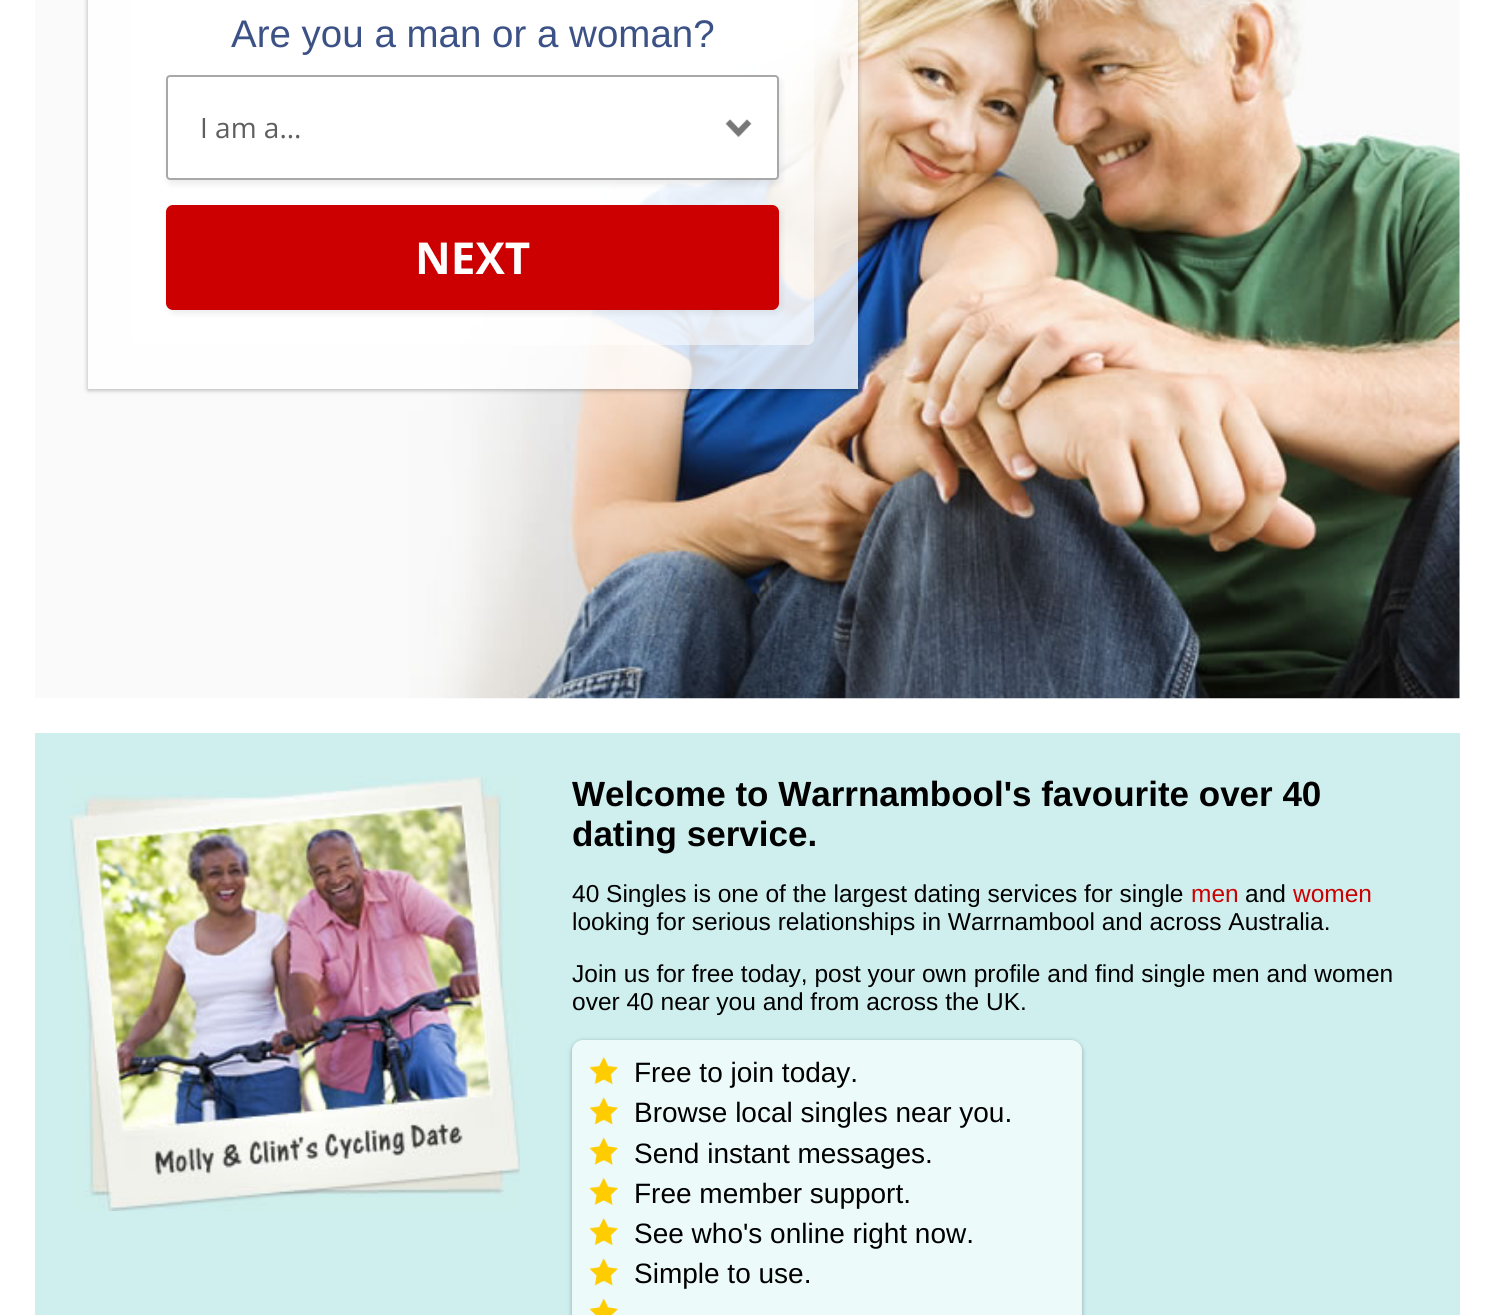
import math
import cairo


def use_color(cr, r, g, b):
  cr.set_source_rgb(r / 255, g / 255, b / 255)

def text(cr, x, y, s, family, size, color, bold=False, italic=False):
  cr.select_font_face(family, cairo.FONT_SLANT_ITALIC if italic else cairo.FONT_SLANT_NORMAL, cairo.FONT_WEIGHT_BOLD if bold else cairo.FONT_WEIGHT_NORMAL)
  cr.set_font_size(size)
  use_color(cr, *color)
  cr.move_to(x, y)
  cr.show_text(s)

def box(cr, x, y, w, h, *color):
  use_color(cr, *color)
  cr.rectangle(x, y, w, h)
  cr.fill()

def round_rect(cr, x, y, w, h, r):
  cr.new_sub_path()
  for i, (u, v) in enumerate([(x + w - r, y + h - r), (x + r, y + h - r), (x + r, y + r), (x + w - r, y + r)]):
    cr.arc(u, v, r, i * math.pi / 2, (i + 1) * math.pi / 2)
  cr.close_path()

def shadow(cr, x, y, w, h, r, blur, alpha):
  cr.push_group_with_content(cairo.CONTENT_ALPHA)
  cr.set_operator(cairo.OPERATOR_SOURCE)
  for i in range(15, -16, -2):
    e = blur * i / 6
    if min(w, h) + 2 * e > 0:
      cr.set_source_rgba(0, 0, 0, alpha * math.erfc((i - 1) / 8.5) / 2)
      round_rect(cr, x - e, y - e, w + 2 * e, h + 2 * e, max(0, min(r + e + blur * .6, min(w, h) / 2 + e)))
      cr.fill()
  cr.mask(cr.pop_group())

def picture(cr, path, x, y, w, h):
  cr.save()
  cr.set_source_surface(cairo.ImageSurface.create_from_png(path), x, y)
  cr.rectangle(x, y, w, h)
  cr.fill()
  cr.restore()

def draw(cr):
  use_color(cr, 255, 255, 255)
  cr.paint()
  picture(cr, "img_01.png", 35, 0, 1425, 699)
  cr.save()
  cr.set_fill_rule(cairo.FILL_RULE_EVEN_ODD)
  cr.new_path()
  cr.move_to(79, 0)
  cr.line_to(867, 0)
  cr.line_to(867, 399)
  cr.line_to(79, 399)
  cr.close_path()
  cr.move_to(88, -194)
  cr.line_to(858, -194)
  cr.line_to(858, 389)
  cr.line_to(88, 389)
  cr.close_path()
  cr.clip()
  use_color(cr, 0, 0, 0)
  shadow(cr, 88, -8, 770, 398, 0, 2.5, 0.3)
  cr.restore()
  cr.set_source_rgba(1, 1, 1, 0.8)
  cr.rectangle(88, 0, 770, 389)
  cr.fill()
  cr.set_source_rgba(1, 1, 1, 0.5)
  round_rect(cr, 131, -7, 683, 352, 7)
  cr.fill()
  use_color(cr, 0, 0, 0)
  shadow(cr, 168, 79, 613, 105, 4, 3.5, 0.08)
  use_color(cr, 255, 255, 255)
  round_rect(cr, 166, 75, 613, 105, 4)
  cr.fill()
  picture(cr, "img_02.png", 725, 119, 27, 19)
  round_rect(cr, 167, 76, 611, 103, 3)
  use_color(cr, 168, 168, 168)
  cr.stroke()
  use_color(cr, 0, 0, 0)
  shadow(cr, 168, 208, 613, 105, 7, 3.5, 0.08)
  use_color(cr, 204, 0, 0)
  round_rect(cr, 166, 205, 613, 105, 7)
  cr.fill()
  box(cr, 35, 733, 1425, 582, 207, 239, 239)
  picture(cr, "img_03.png", 70, 777, 450, 434)
  use_color(cr, 0, 0, 0)
  shadow(cr, 572, 1041, 510, 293, 11, 2.5, 0.3)
  use_color(cr, 237, 250, 250)
  round_rect(cr, 572, 1040, 510, 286, 11)
  cr.fill()
  picture(cr, "img_04.png", 589, 1057, 29, 28)
  picture(cr, "img_05.png", 589, 1097, 29, 28)
  picture(cr, "img_06.png", 589, 1137, 29, 28)
  picture(cr, "img_07.png", 589, 1177, 29, 28)
  picture(cr, "img_04.png", 589, 1218, 29, 28)
  picture(cr, "img_05.png", 589, 1258, 29, 28)
  picture(cr, "img_08.png", 589, 1298, 29, 17)
  text(cr, 231, 47, "Are you a man or a woman?", "Liberation Sans", 38.5, (60, 82, 134))
  text(cr, 200, 138, "I am a...", "Open Sans", 28, (95, 95, 95))
  text(cr, 415, 274, "NEXT", "Open Sans", 44, (255, 255, 255), bold=True)
  text(cr, 572, 806, "Welcome to Warrnambool's favourite over 40", "Liberation Sans", 35, (0, 0, 0), bold=True)
  text(cr, 572, 846, "dating service.", "Liberation Sans", 35, (0, 0, 0), bold=True)
  text(cr, 572, 902, "40 Singles is one of the largest dating services for single", "Liberation Sans", 24.5, (0, 0, 0))
  text(cr, 1191, 902, "men", "Liberation Sans", 24.5, (204, 0, 0))
  text(cr, 1245, 902, "and", "Liberation Sans", 24.5, (0, 0, 0))
  text(cr, 1293, 902, "women", "Liberation Sans", 24.5, (204, 0, 0))
  text(cr, 572, 930, "looking for serious relationships in Warrnambool and across Australia.", "Liberation Sans", 24.5, (0, 0, 0))
  text(cr, 572, 982, "Join us for free today, post your own profile and find single men and women", "Liberation Sans", 24.5, (0, 0, 0))
  text(cr, 572, 1010, "over 40 near you and from across the UK.", "Liberation Sans", 24.5, (0, 0, 0))
  text(cr, 634, 1082, "Free to join today.", "Liberation Sans", 28, (0, 0, 0))
  text(cr, 634, 1122, "Browse local singles near you.", "Liberation Sans", 28, (0, 0, 0))
  text(cr, 634, 1163, "Send instant messages.", "Liberation Sans", 28, (0, 0, 0))
  text(cr, 634, 1203, "Free member support.", "Liberation Sans", 28, (0, 0, 0))
  text(cr, 634, 1243, "See who's online right now.", "Liberation Sans", 28, (0, 0, 0))
  text(cr, 634, 1283, "Simple to use.", "Liberation Sans", 28, (0, 0, 0))


surface = cairo.ImageSurface(cairo.FORMAT_RGB24, 1493, 1315)
cr = cairo.Context(surface)
options = cairo.FontOptions()
options.set_hint_metrics(cairo.HINT_METRICS_OFF)
options.set_hint_style(cairo.HINT_STYLE_NONE)
cr.set_font_options(options)
cr.set_miter_limit(4)
draw(cr)
surface.write_to_png("out.png")
